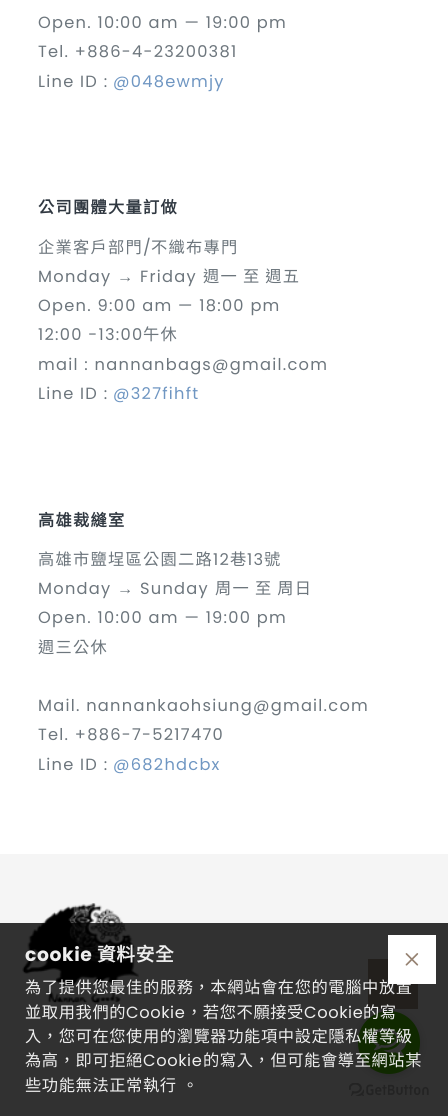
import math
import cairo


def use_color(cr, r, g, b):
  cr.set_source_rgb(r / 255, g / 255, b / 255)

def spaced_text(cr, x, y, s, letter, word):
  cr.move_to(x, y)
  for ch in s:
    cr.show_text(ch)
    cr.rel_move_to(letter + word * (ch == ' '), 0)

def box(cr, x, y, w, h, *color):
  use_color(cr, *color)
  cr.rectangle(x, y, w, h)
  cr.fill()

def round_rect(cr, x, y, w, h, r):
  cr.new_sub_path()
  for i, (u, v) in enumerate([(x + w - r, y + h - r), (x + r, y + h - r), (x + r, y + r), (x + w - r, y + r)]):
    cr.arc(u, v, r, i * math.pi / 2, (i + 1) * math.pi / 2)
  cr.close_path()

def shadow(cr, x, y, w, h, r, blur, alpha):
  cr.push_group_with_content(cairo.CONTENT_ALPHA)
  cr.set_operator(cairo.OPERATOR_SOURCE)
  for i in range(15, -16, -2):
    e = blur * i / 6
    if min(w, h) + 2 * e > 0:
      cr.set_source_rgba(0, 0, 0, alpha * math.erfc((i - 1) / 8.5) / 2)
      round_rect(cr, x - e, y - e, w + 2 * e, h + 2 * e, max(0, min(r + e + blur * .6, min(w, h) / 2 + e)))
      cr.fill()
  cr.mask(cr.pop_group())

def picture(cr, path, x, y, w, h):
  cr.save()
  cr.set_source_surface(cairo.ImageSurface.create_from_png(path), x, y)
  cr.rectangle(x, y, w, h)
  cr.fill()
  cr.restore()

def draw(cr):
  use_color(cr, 245, 245, 245)
  cr.paint()
  box(cr, 0, 0, 448, 854, 255, 255, 255)
  picture(cr, "img_01.png", 22, 903, 117, 101)
  box(cr, 368, 959, 50, 50, 169, 153, 140)
  picture(cr, "img_03.png", 382, 979, 21, 16)
  picture(cr, "img_05.png", 349, 1083, 80, 13)
  use_color(cr, 136, 136, 136)
  shadow(cr, 358, 1013, 62, 62, 31, 4.5, 0.4)
  use_color(cr, 78, 205, 0)
  round_rect(cr, 358, 1011, 62, 63, 31)
  cr.fill()
  picture(cr, "img_04.png", 371, 1028, 35, 28)
  cr.set_source_rgba(0, 0, 0, 0.8)
  cr.rectangle(0, 923, 448, 193)
  cr.fill()
  cr.select_font_face("Poppins")
  cr.set_font_size(16.25)
  use_color(cr, 109, 118, 125)
  spaced_text(cr, 38, 28, "Open. 10:00 am — 19:00 pm", 1.25, 0)
  spaced_text(cr, 38, 57, "Tel. +886-4-23200381", 1.25, 0)
  spaced_text(cr, 38, 87, "Line ID :", 1.25, 0)
  use_color(cr, 111, 150, 194)
  spaced_text(cr, 113, 87, "@048ewmjy", 1.25, 0)
  cr.select_font_face("Noto Sans CJK TC", cairo.FONT_SLANT_NORMAL, cairo.FONT_WEIGHT_BOLD)
  use_color(cr, 48, 56, 65)
  spaced_text(cr, 38, 213, "公司團體大量訂做", 1.25, 0)
  cr.select_font_face("Noto Sans CJK TC")
  use_color(cr, 109, 118, 125)
  spaced_text(cr, 38, 253, "企業客戶部門", 1.25, 0)
  cr.select_font_face("Poppins")
  spaced_text(cr, 143, 253, "/", 1.25, 0)
  cr.select_font_face("Noto Sans CJK TC")
  spaced_text(cr, 151, 253, "不織布專門", 1.25, 0)
  cr.select_font_face("Poppins")
  spaced_text(cr, 38, 282, "Monday", 1.25, 0)
  cr.select_font_face("Liberation Serif")
  spaced_text(cr, 117, 282, "→", 1.25, 0)
  cr.select_font_face("Poppins")
  spaced_text(cr, 140, 282, "Friday", 1.25, 0)
  cr.select_font_face("Noto Sans CJK TC")
  spaced_text(cr, 203, 282, "週一 至 週五", 1.25, 0)
  cr.select_font_face("Poppins")
  spaced_text(cr, 38, 311, "Open. 9:00 am — 18:00 pm", 1.25, 0)
  spaced_text(cr, 38, 340, "12:00 -13:00", 1.25, 0)
  cr.select_font_face("Noto Sans CJK TC")
  spaced_text(cr, 143, 340, "午休", 1.25, 0)
  cr.select_font_face("Poppins")
  spaced_text(cr, 38, 370, "mail : nannanbags@gmail.com", 1.25, 0)
  spaced_text(cr, 38, 399, "Line ID :", 1.25, 0)
  use_color(cr, 111, 150, 194)
  spaced_text(cr, 113, 399, "@327fihft", 1.25, 0)
  cr.select_font_face("Noto Sans CJK TC", cairo.FONT_SLANT_NORMAL, cairo.FONT_WEIGHT_BOLD)
  use_color(cr, 48, 56, 65)
  spaced_text(cr, 38, 526, "高雄裁縫室", 1.25, 0)
  cr.select_font_face("Noto Sans CJK TC")
  use_color(cr, 109, 118, 125)
  spaced_text(cr, 38, 565, "高雄市鹽埕區公園二路", 1.25, 0)
  cr.select_font_face("Poppins")
  spaced_text(cr, 213, 565, "12", 1.25, 0)
  cr.select_font_face("Noto Sans CJK TC")
  spaced_text(cr, 230, 565, "巷", 1.25, 0)
  cr.select_font_face("Poppins")
  spaced_text(cr, 247, 565, "13", 1.25, 0)
  cr.select_font_face("Noto Sans CJK TC")
  spaced_text(cr, 264, 565, "號", 1.25, 0)
  cr.select_font_face("Poppins")
  spaced_text(cr, 38, 594, "Monday", 1.25, 0)
  cr.select_font_face("Liberation Serif")
  spaced_text(cr, 117, 594, "→", 1.25, 0)
  cr.select_font_face("Poppins")
  spaced_text(cr, 140, 594, "Sunday", 1.25, 0)
  cr.select_font_face("Noto Sans CJK TC")
  spaced_text(cr, 215, 594, "周一 至 周日", 1.25, 0)
  cr.select_font_face("Poppins")
  spaced_text(cr, 38, 623, "Open. 10:00 am — 19:00 pm", 1.25, 0)
  cr.select_font_face("Noto Sans CJK TC")
  spaced_text(cr, 38, 653, "週三公休", 1.25, 0)
  cr.select_font_face("Poppins")
  spaced_text(cr, 38, 711, "Mail. nannankaohsiung@gmail.com", 1.25, 0)
  spaced_text(cr, 38, 740, "Tel. +886-7-5217470", 1.25, 0)
  spaced_text(cr, 38, 770, "Line ID :", 1.25, 0)
  use_color(cr, 111, 150, 194)
  spaced_text(cr, 113, 770, "@682hdcbx", 1.25, 0)
  cr.select_font_face("Poppins", cairo.FONT_SLANT_NORMAL, cairo.FONT_WEIGHT_BOLD)
  cr.set_font_size(18.75)
  use_color(cr, 238, 238, 238)
  spaced_text(cr, 25, 961, "cookie", 0.6, 0)
  cr.select_font_face("Noto Sans CJK TC", cairo.FONT_SLANT_NORMAL, cairo.FONT_WEIGHT_BOLD)
  spaced_text(cr, 97, 961, "資料安全", 0.6, 0)
  cr.select_font_face("Noto Sans CJK TC")
  cr.set_font_size(16.25)
  spaced_text(cr, 25, 993, "為了提供您最佳的服務，本網站會在您的電腦中放置", 0.6, 0)
  box(cr, 388, 935, 48, 49, 255, 255, 255)
  picture(cr, "img_02.png", 405, 953, 14, 13)
  use_color(cr, 238, 238, 238)
  spaced_text(cr, 25, 1018, "並取用我們的", 0.6, 0)
  cr.select_font_face("Poppins")
  spaced_text(cr, 126, 1018, "Cookie", 0.6, 0)
  cr.select_font_face("Noto Sans CJK TC")
  spaced_text(cr, 186, 1018, "，若您不願接受", 0.6, 0)
  cr.select_font_face("Poppins")
  spaced_text(cr, 304, 1018, "Cookie", 0.6, 0)
  cr.select_font_face("Noto Sans CJK TC")
  spaced_text(cr, 363, 1018, "的寫", 0.6, 0)
  spaced_text(cr, 25, 1042, "入，您可在您使用的瀏覽器功能項中設定隱私權等級", 0.6, 0)
  spaced_text(cr, 25, 1066, "為高，即可拒絕", 0.6, 0)
  cr.select_font_face("Poppins")
  spaced_text(cr, 143, 1066, "Cookie", 0.6, 0)
  cr.select_font_face("Noto Sans CJK TC")
  spaced_text(cr, 203, 1066, "的寫入，但可能會導至網站某", 0.6, 0)
  spaced_text(cr, 25, 1091, "些功能無法正常執行 。", 0.6, 1)


surface = cairo.ImageSurface(cairo.FORMAT_RGB24, 448, 1116)
cr = cairo.Context(surface)
options = cairo.FontOptions()
options.set_hint_metrics(cairo.HINT_METRICS_OFF)
options.set_hint_style(cairo.HINT_STYLE_NONE)
cr.set_font_options(options)
cr.set_miter_limit(4)
draw(cr)
surface.write_to_png("out.png")
